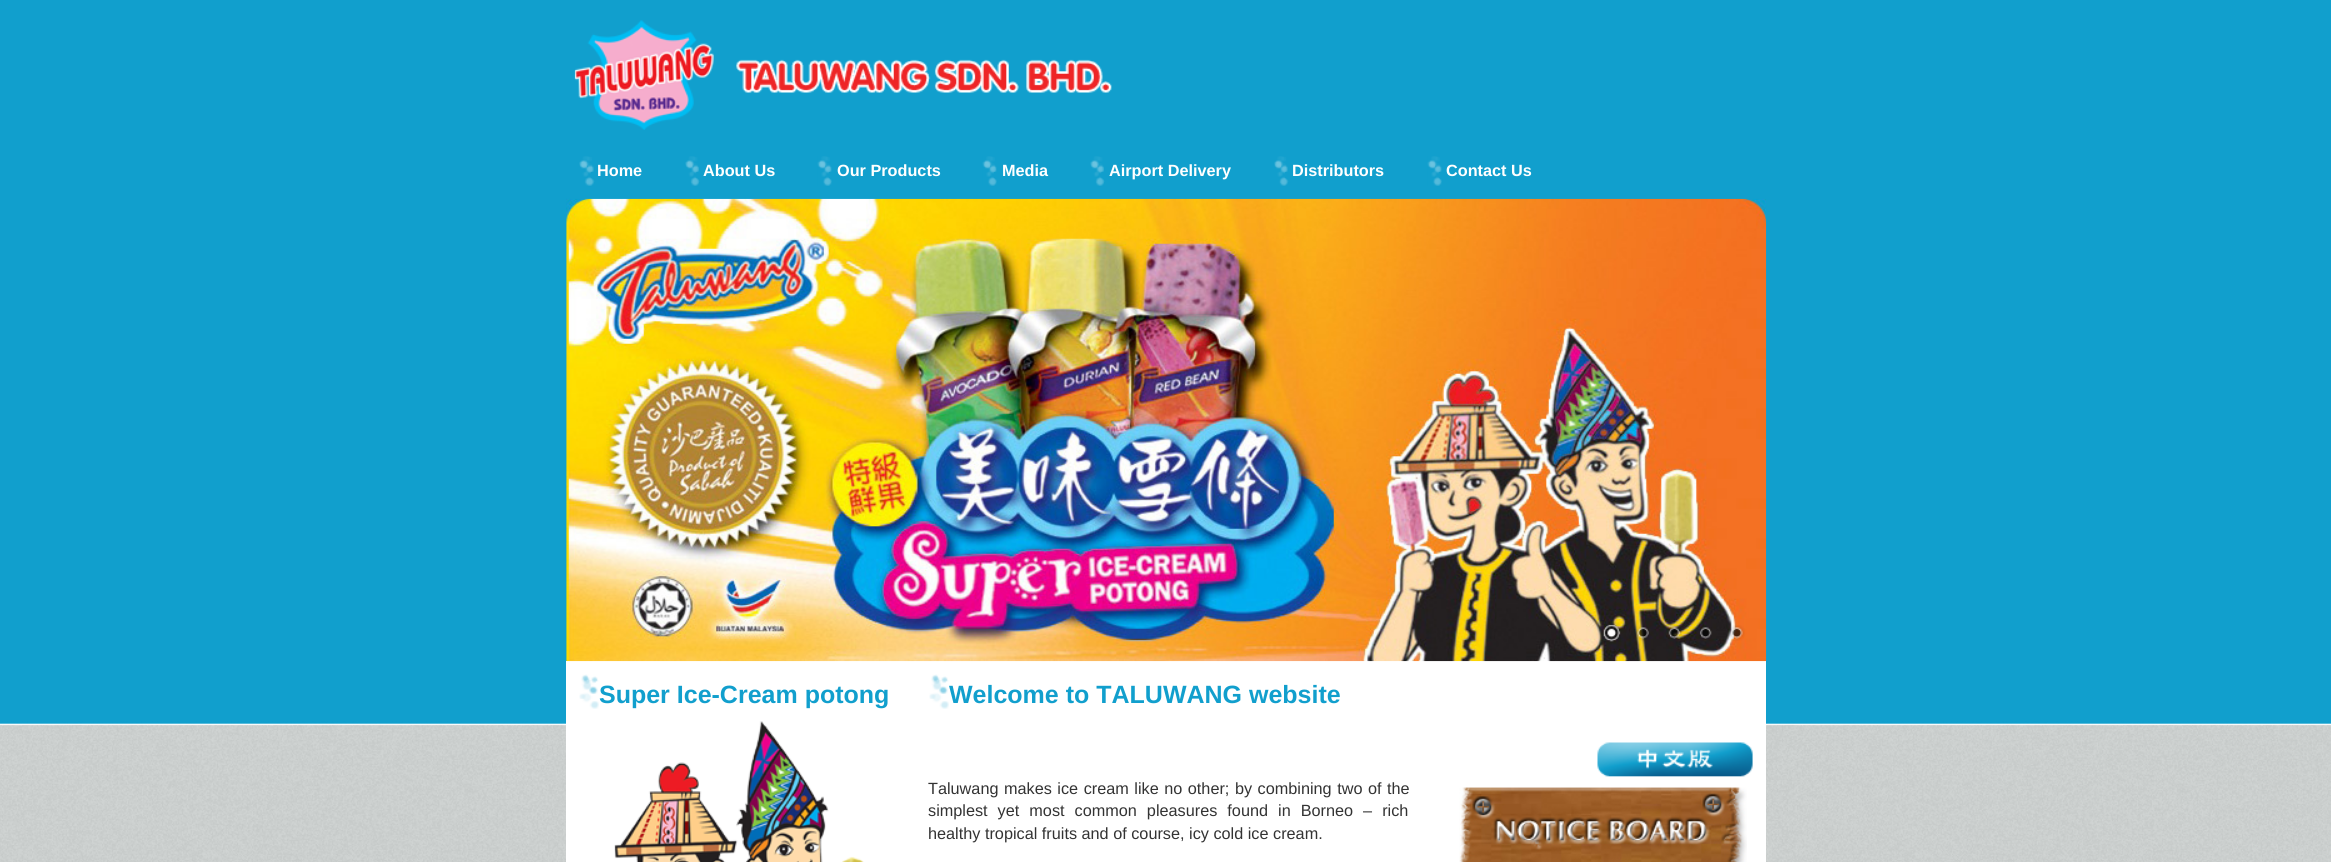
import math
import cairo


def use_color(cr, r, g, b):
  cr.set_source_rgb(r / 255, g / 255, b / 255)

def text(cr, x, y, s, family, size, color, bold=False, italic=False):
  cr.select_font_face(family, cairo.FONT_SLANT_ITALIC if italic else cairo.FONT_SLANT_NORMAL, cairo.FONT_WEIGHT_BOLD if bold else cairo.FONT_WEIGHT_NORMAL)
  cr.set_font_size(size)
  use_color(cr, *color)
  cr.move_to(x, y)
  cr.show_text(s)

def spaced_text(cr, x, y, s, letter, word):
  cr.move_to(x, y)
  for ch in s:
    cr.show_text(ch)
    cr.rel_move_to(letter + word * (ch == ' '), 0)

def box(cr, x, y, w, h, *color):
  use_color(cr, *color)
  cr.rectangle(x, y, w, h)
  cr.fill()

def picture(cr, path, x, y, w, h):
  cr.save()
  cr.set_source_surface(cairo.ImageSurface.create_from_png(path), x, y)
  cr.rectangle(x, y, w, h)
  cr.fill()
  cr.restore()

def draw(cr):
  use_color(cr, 17, 159, 205)
  cr.paint()
  picture(cr, "img_01.png", 574, 20, 538, 110)
  picture(cr, "img_02.png", 579, 156, 16, 30)
  picture(cr, "img_03.png", 685, 156, 15, 30)
  picture(cr, "img_04.png", 817, 156, 15, 30)
  picture(cr, "img_04.png", 982, 156, 15, 30)
  picture(cr, "img_05.png", 1090, 156, 15, 30)
  picture(cr, "img_06.png", 1274, 156, 15, 30)
  picture(cr, "img_07.png", 1427, 156, 15, 30)
  picture(cr, "img_14.png", 0, 661, 2331, 201)
  box(cr, 566, 661, 1200, 201, 255, 255, 255)
  picture(cr, "img_08.png", 566, 198, 1201, 464)
  picture(cr, "img_09.png", 1603, 622, 18, 20)
  picture(cr, "img_10.png", 1636, 625, 13, 16)
  picture(cr, "img_11.png", 1668, 625, 14, 14)
  picture(cr, "img_12.png", 1699, 627, 13, 12)
  picture(cr, "img_13.png", 1729, 625, 16, 16)
  picture(cr, "img_15.png", 579, 674, 20, 35)
  picture(cr, "img_16.png", 614, 721, 250, 141)
  picture(cr, "img_15.png", 929, 674, 20, 35)
  picture(cr, "img_17.png", 1597, 742, 156, 35)
  picture(cr, "img_18.png", 1459, 787, 288, 75)
  text(cr, 597, 176, "Home", "Liberation Sans", 16.25, (255, 255, 255), bold=True)
  text(cr, 703, 176, "About Us", "Liberation Sans", 16.25, (255, 255, 255), bold=True)
  text(cr, 837, 176, "Our Products", "Liberation Sans", 16.25, (255, 255, 255), bold=True)
  text(cr, 1002, 176, "Media", "Liberation Sans", 16.25, (255, 255, 255), bold=True)
  text(cr, 1109, 176, "Airport Delivery", "Liberation Sans", 16.25, (255, 255, 255), bold=True)
  text(cr, 1292, 176, "Distributors", "Liberation Sans", 16.25, (255, 255, 255), bold=True)
  text(cr, 1446, 176, "Contact Us", "Liberation Sans", 16.25, (255, 255, 255), bold=True)
  text(cr, 599, 703, "Super Ice-Cream potong", "Liberation Sans", 25, (17, 159, 205), bold=True)
  text(cr, 949, 703, "Welcome to TALUWANG website", "Liberation Sans", 25, (17, 159, 205), bold=True)
  cr.select_font_face("Liberation Sans")
  cr.set_font_size(16.25)
  use_color(cr, 51, 51, 51)
  spaced_text(cr, 928, 794, "Taluwang makes ice cream like no other; by combining two of the", 0, 1)
  spaced_text(cr, 928, 816, "simplest yet most common pleasures found in Borneo – rich", 0, 5.5)
  text(cr, 928, 839, "healthy tropical fruits and of course, icy cold ice cream.", "Liberation Sans", 16.25, (51, 51, 51))


surface = cairo.ImageSurface(cairo.FORMAT_RGB24, 2331, 862)
cr = cairo.Context(surface)
options = cairo.FontOptions()
options.set_hint_metrics(cairo.HINT_METRICS_OFF)
options.set_hint_style(cairo.HINT_STYLE_NONE)
cr.set_font_options(options)
cr.set_miter_limit(4)
draw(cr)
surface.write_to_png("out.png")
